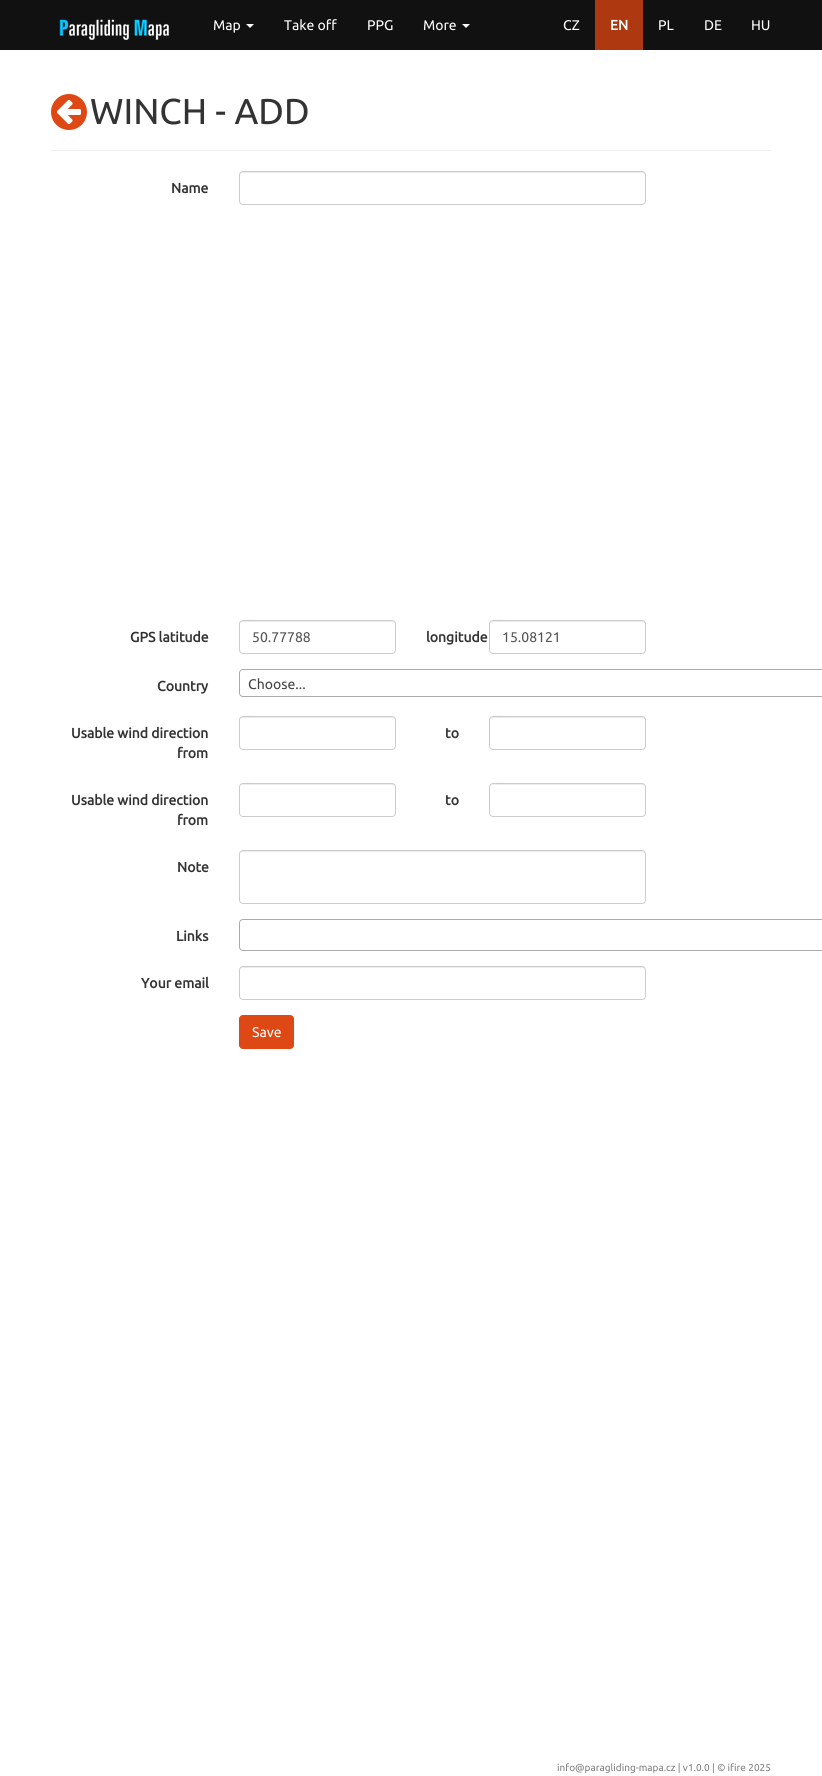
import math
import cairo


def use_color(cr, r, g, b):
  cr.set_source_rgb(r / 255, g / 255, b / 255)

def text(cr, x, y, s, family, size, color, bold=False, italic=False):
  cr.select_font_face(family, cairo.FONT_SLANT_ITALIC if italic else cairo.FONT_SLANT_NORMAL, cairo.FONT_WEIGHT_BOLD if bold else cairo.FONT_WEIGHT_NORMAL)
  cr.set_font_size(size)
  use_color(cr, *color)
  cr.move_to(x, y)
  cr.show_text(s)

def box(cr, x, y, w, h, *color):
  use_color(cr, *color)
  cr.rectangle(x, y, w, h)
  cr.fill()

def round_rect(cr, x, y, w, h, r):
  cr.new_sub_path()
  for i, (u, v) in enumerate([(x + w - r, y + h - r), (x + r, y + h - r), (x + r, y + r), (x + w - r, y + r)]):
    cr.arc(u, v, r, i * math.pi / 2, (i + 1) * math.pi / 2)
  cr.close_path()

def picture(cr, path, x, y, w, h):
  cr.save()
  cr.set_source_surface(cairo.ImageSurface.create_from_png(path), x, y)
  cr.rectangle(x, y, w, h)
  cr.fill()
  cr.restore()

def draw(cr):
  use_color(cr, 255, 255, 255)
  cr.paint()
  box(cr, 0, 0, 822, 50, 17, 17, 17)
  picture(cr, "img_01.png", 59, 19, 110, 21)
  use_color(cr, 255, 255, 255)
  cr.new_path()
  cr.move_to(246, 24)
  cr.line_to(254, 24)
  cr.line_to(250, 28)
  cr.close_path()
  cr.fill()
  cr.new_path()
  cr.move_to(462, 24)
  cr.line_to(470, 24)
  cr.line_to(466, 28)
  cr.close_path()
  cr.fill()
  box(cr, 595, 0, 48, 50, 174, 57, 16)
  box(cr, 51, 150, 720, 1, 238, 238, 238)
  picture(cr, "img_02.png", 51, 94, 36, 36)
  use_color(cr, 236, 236, 236)
  cr.new_path()
  cr.move_to(243, 173)
  cr.line_to(642, 173)
  cr.curve_to(644, 173, 645, 174, 645, 176)
  cr.curve_to(645, 174, 644, 172, 642, 172)
  cr.line_to(243, 172)
  cr.curve_to(241, 172, 240, 174, 240, 176)
  cr.curve_to(240, 174, 241, 173, 243, 173)
  cr.close_path()
  cr.fill()
  round_rect(cr, 239.5, 171.5, 406, 33, 3.5)
  use_color(cr, 204, 204, 204)
  cr.set_line_width(1)
  cr.stroke()
  use_color(cr, 236, 236, 236)
  cr.new_path()
  cr.move_to(243, 622)
  cr.line_to(392, 622)
  cr.curve_to(394, 622, 395, 623, 395, 625)
  cr.curve_to(395, 623, 395, 622, 393, 621)
  cr.line_to(268, 621)
  cr.curve_to(260, 621, 240, 616, 240, 625)
  cr.curve_to(240, 623, 241, 622, 243, 622)
  cr.close_path()
  cr.fill()
  round_rect(cr, 239.5, 620.5, 156, 33, 3.5)
  use_color(cr, 204, 204, 204)
  cr.stroke()
  use_color(cr, 236, 236, 236)
  cr.new_path()
  cr.move_to(493, 622)
  cr.line_to(642, 622)
  cr.curve_to(644, 622, 645, 623, 645, 625)
  cr.curve_to(645, 623, 645, 622, 643, 621)
  cr.line_to(518, 621)
  cr.curve_to(510, 621, 490, 616, 490, 625)
  cr.curve_to(490, 623, 491, 622, 493, 622)
  cr.close_path()
  cr.fill()
  round_rect(cr, 489.5, 620.5, 156, 33, 3.5)
  use_color(cr, 204, 204, 204)
  cr.stroke()
  round_rect(cr, 239.5, 669.5, 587, 27, 3.5)
  use_color(cr, 170, 170, 170)
  cr.stroke()
  use_color(cr, 236, 236, 236)
  cr.new_path()
  cr.move_to(243, 718)
  cr.line_to(392, 718)
  cr.curve_to(394, 718, 395, 719, 395, 721)
  cr.curve_to(395, 719, 395, 718, 393, 717)
  cr.line_to(268, 717)
  cr.curve_to(260, 717, 240, 712, 240, 721)
  cr.curve_to(240, 719, 241, 718, 243, 718)
  cr.close_path()
  cr.fill()
  round_rect(cr, 239.5, 716.5, 156, 33, 3.5)
  use_color(cr, 204, 204, 204)
  cr.stroke()
  use_color(cr, 236, 236, 236)
  cr.new_path()
  cr.move_to(493, 718)
  cr.line_to(642, 718)
  cr.curve_to(644, 718, 645, 719, 645, 721)
  cr.curve_to(645, 719, 645, 718, 643, 717)
  cr.line_to(518, 717)
  cr.curve_to(510, 717, 490, 712, 490, 721)
  cr.curve_to(490, 719, 491, 718, 493, 718)
  cr.close_path()
  cr.fill()
  round_rect(cr, 489.5, 716.5, 156, 33, 3.5)
  use_color(cr, 204, 204, 204)
  cr.stroke()
  use_color(cr, 236, 236, 236)
  cr.new_path()
  cr.move_to(243, 785)
  cr.line_to(392, 785)
  cr.curve_to(394, 785, 395, 786, 395, 788)
  cr.curve_to(395, 786, 395, 785, 393, 784)
  cr.line_to(268, 784)
  cr.curve_to(260, 784, 240, 779, 240, 788)
  cr.curve_to(240, 786, 241, 785, 243, 785)
  cr.close_path()
  cr.fill()
  round_rect(cr, 239.5, 783.5, 156, 33, 3.5)
  use_color(cr, 204, 204, 204)
  cr.stroke()
  use_color(cr, 236, 236, 236)
  cr.new_path()
  cr.move_to(493, 785)
  cr.line_to(642, 785)
  cr.curve_to(644, 785, 645, 786, 645, 788)
  cr.curve_to(645, 786, 645, 785, 643, 784)
  cr.line_to(518, 784)
  cr.curve_to(510, 784, 490, 779, 490, 788)
  cr.curve_to(490, 786, 491, 785, 493, 785)
  cr.close_path()
  cr.fill()
  round_rect(cr, 489.5, 783.5, 156, 33, 3.5)
  use_color(cr, 204, 204, 204)
  cr.stroke()
  use_color(cr, 236, 236, 236)
  cr.new_path()
  cr.move_to(243, 852)
  cr.line_to(642, 852)
  cr.curve_to(644, 852, 645, 853, 645, 855)
  cr.curve_to(645, 853, 644, 851, 642, 851)
  cr.line_to(243, 851)
  cr.curve_to(241, 851, 240, 853, 240, 855)
  cr.curve_to(240, 853, 241, 852, 243, 852)
  cr.close_path()
  cr.fill()
  round_rect(cr, 239.5, 850.5, 406, 53, 3.5)
  use_color(cr, 204, 204, 204)
  cr.stroke()
  round_rect(cr, 239.5, 919.5, 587, 31, 3.5)
  use_color(cr, 170, 170, 170)
  cr.stroke()
  use_color(cr, 236, 236, 236)
  cr.new_path()
  cr.move_to(243, 968)
  cr.line_to(642, 968)
  cr.curve_to(644, 968, 645, 969, 645, 971)
  cr.curve_to(645, 969, 644, 967, 642, 967)
  cr.line_to(243, 967)
  cr.curve_to(241, 967, 240, 969, 240, 971)
  cr.curve_to(240, 969, 241, 968, 243, 968)
  cr.close_path()
  cr.fill()
  round_rect(cr, 239.5, 966.5, 406, 33, 3.5)
  use_color(cr, 204, 204, 204)
  cr.stroke()
  use_color(cr, 221, 72, 20)
  round_rect(cr, 239.5, 1015.5, 54, 33, 3.5)
  cr.fill_preserve()
  cr.stroke()
  text(cr, 213, 30, "Map", "Ubuntu", 14, (255, 255, 255))
  text(cr, 284, 30, "Take off", "Ubuntu", 14, (255, 255, 255))
  text(cr, 367, 30, "PPG", "Ubuntu", 14, (255, 255, 255))
  text(cr, 423, 30, "More", "Ubuntu", 14, (255, 255, 255))
  text(cr, 563, 30, "CZ", "Ubuntu", 14, (255, 255, 255))
  text(cr, 610, 30, "EN", "Ubuntu", 14, (255, 255, 255), bold=True)
  text(cr, 658, 30, "PL", "Ubuntu", 14, (255, 255, 255))
  text(cr, 704, 30, "DE", "Ubuntu", 14, (255, 255, 255))
  text(cr, 751, 30, "HU", "Ubuntu", 14, (255, 255, 255))
  text(cr, 90, 124, "WINCH - ADD", "Ubuntu", 36, (51, 51, 51))
  text(cr, 171, 193, "Name", "Ubuntu", 14, (51, 51, 51), bold=True)
  text(cr, 130, 642, "GPS latitude", "Ubuntu", 14, (51, 51, 51), bold=True)
  text(cr, 252, 642, "50.77788", "Ubuntu", 14, (85, 85, 85))
  text(cr, 426, 642, "longitude", "Ubuntu", 14, (51, 51, 51), bold=True)
  text(cr, 502, 642, "15.08121", "Ubuntu", 14, (85, 85, 85))
  text(cr, 157, 691, "Country", "Ubuntu", 14, (51, 51, 51), bold=True)
  text(cr, 248, 689, "Choose...", "Ubuntu", 14, (68, 68, 68))
  text(cr, 71, 738, "Usable wind direction", "Ubuntu", 14, (51, 51, 51), bold=True)
  text(cr, 177, 758, "from", "Ubuntu", 14, (51, 51, 51), bold=True)
  text(cr, 445, 738, "to", "Ubuntu", 14, (51, 51, 51), bold=True)
  text(cr, 71, 805, "Usable wind direction", "Ubuntu", 14, (51, 51, 51), bold=True)
  text(cr, 177, 825, "from", "Ubuntu", 14, (51, 51, 51), bold=True)
  text(cr, 445, 805, "to", "Ubuntu", 14, (51, 51, 51), bold=True)
  text(cr, 177, 872, "Note", "Ubuntu", 14, (51, 51, 51), bold=True)
  text(cr, 176, 941, "Links", "Ubuntu", 14, (51, 51, 51), bold=True)
  text(cr, 141, 988, "Your email", "Ubuntu", 14, (51, 51, 51), bold=True)
  text(cr, 252, 1037, "Save", "Ubuntu", 14, (255, 255, 255))
  text(cr, 557, 1771, "info@paragliding-mapa.cz | v1.0.0 | © ifire 2025", "Ubuntu", 10, (128, 128, 128))


surface = cairo.ImageSurface(cairo.FORMAT_RGB24, 822, 1776)
cr = cairo.Context(surface)
options = cairo.FontOptions()
options.set_hint_metrics(cairo.HINT_METRICS_OFF)
options.set_hint_style(cairo.HINT_STYLE_NONE)
cr.set_font_options(options)
cr.set_miter_limit(4)
draw(cr)
surface.write_to_png("out.png")
